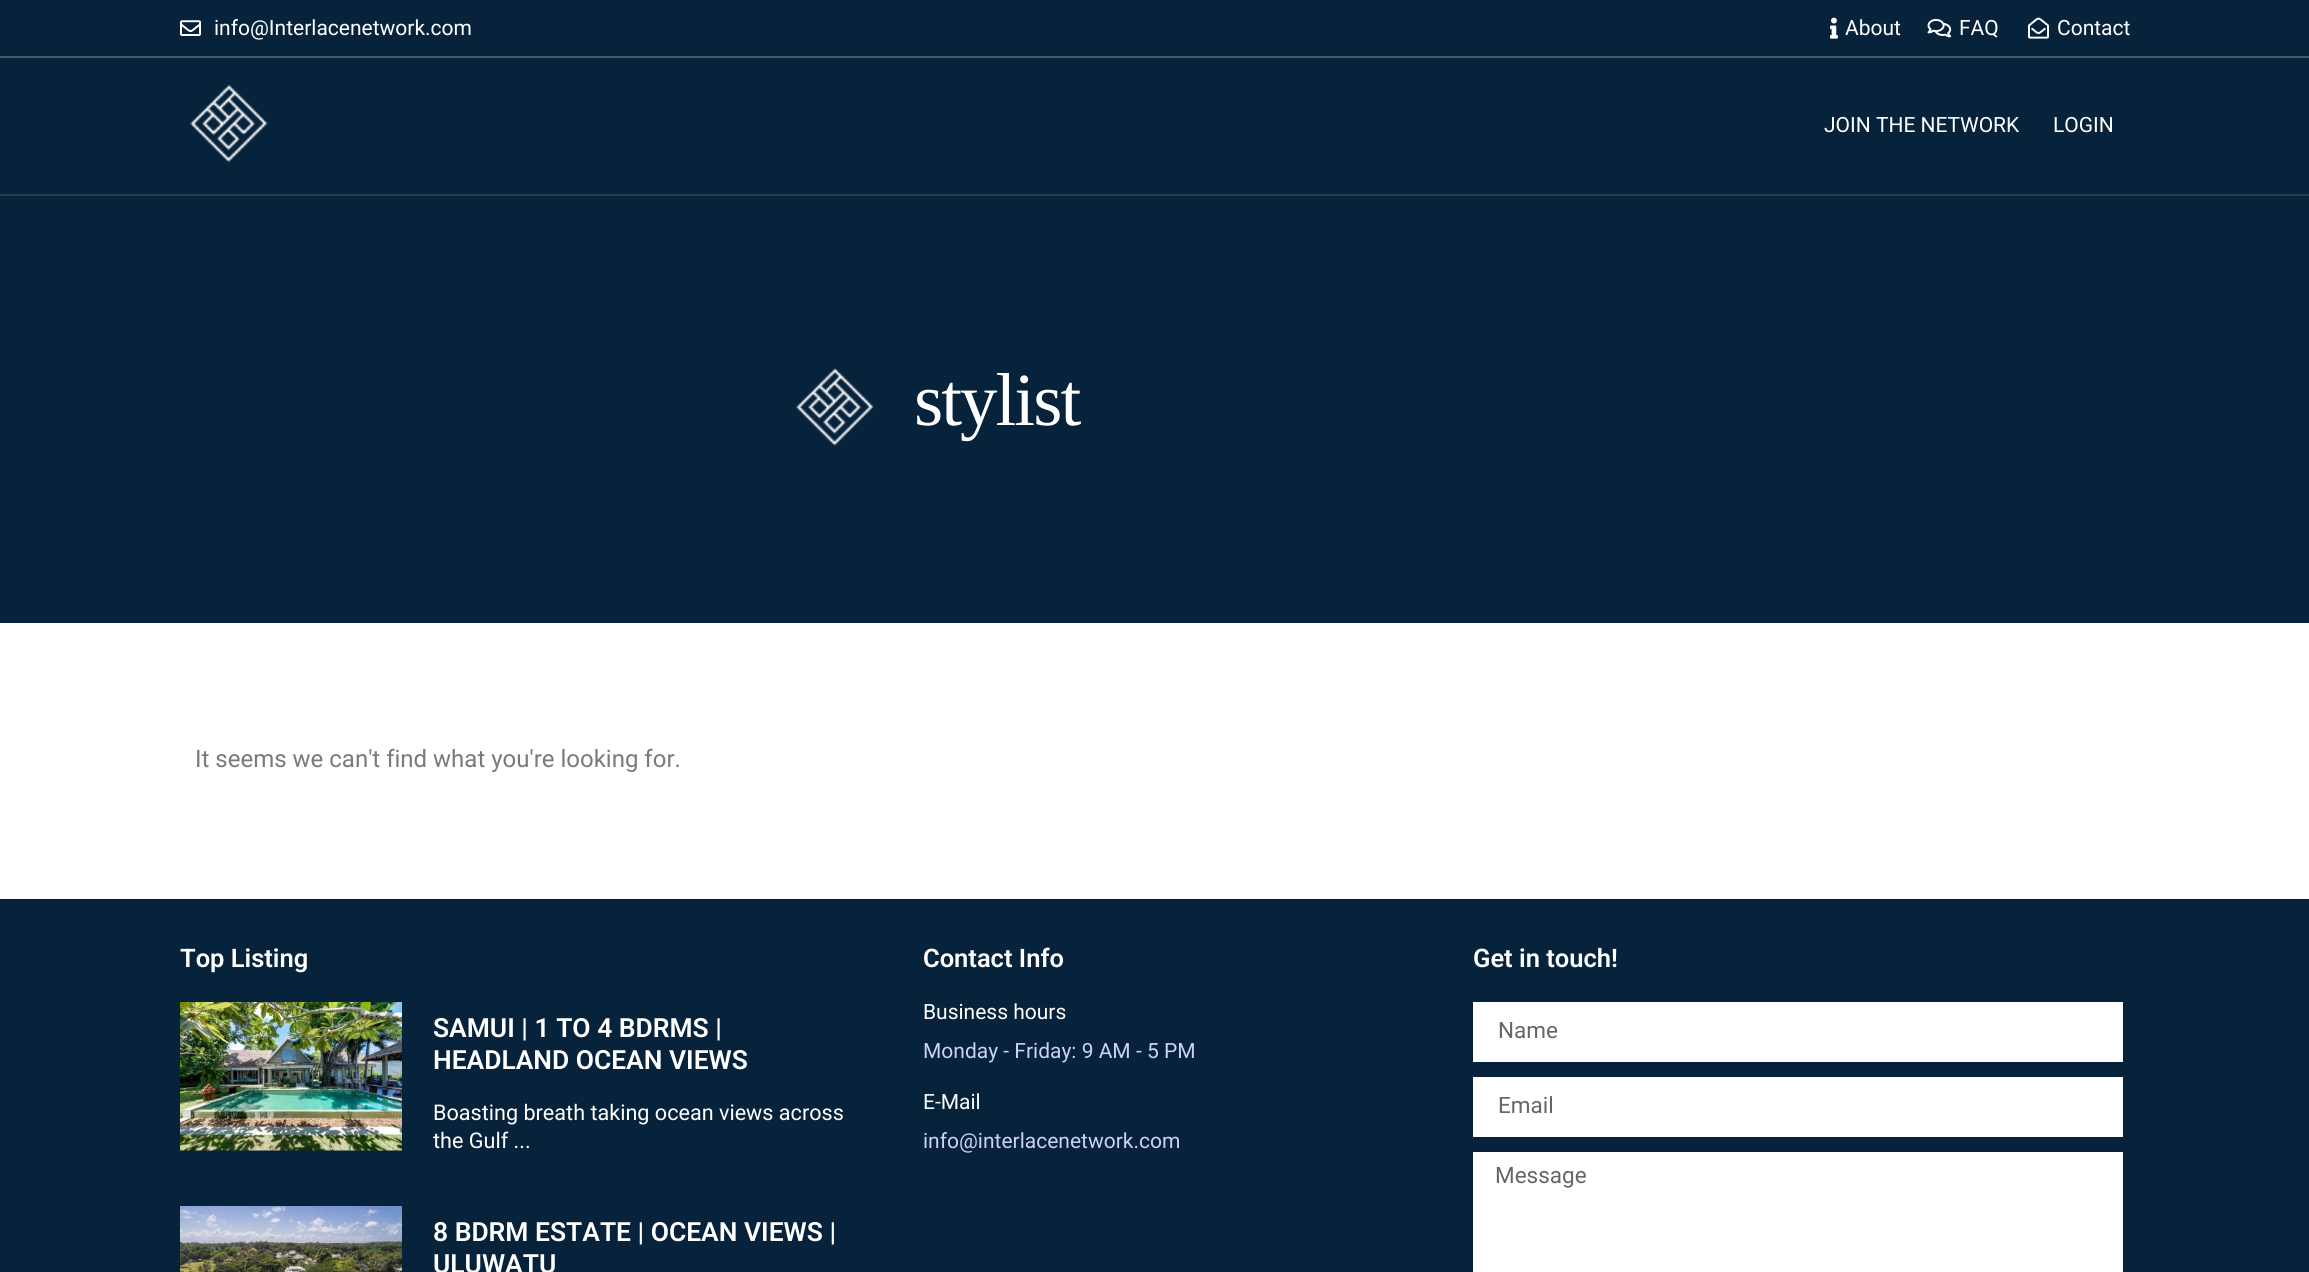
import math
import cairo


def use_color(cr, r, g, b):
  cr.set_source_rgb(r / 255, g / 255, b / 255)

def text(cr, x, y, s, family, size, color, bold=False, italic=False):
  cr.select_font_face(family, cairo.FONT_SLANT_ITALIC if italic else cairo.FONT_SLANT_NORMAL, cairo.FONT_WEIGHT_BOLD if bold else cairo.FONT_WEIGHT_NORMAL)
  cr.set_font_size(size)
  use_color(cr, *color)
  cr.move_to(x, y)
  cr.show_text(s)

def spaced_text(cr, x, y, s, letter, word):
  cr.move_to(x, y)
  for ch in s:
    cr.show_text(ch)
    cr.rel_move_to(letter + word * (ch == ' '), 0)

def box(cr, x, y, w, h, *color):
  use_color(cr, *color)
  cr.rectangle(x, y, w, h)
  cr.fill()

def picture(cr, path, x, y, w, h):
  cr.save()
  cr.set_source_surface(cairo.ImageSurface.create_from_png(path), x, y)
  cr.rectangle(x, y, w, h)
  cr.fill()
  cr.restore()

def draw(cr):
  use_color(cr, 255, 255, 255)
  cr.paint()
  box(cr, 0, 0, 2309, 56, 7, 34, 59)
  picture(cr, "img_01.png", 180, 20, 21, 16)
  picture(cr, "img_02.png", 1830, 17, 8, 22)
  picture(cr, "img_03.png", 1927, 18, 25, 20)
  picture(cr, "img_04.png", 2028, 17, 21, 22)
  box(cr, 0, 58, 2309, 136, 7, 34, 59)
  box(cr, 0, 56, 2309, 2, 67, 87, 106)
  picture(cr, "img_05.png", 190, 85, 78, 78)
  box(cr, 0, 196, 2309, 427, 7, 34, 59)
  box(cr, 0, 194, 2309, 2, 37, 61, 83)
  picture(cr, "img_06.png", 796, 368, 78, 78)
  box(cr, 0, 899, 2309, 373, 7, 34, 59)
  picture(cr, "img_07.png", 180, 1002, 222, 149)
  picture(cr, "img_08.png", 180, 1206, 222, 66)
  box(cr, 1473, 1002, 650, 60, 255, 255, 255)
  box(cr, 1473, 1077, 650, 60, 255, 255, 255)
  box(cr, 1473, 1152, 650, 120, 255, 255, 255)
  text(cr, 214, 35, "info@Interlacenetwork.com", "Roboto", 21, (255, 255, 255))
  text(cr, 1845, 35, "About", "Roboto", 21, (255, 255, 255))
  text(cr, 1959, 35, "FAQ", "Roboto", 21, (255, 255, 255))
  text(cr, 2057, 35, "Contact", "Roboto", 21, (255, 255, 255))
  text(cr, 1824, 132, "JOIN THE NETWORK", "Roboto", 21, (255, 255, 255))
  text(cr, 2053, 132, "LOGIN", "Roboto", 21, (255, 255, 255))
  cr.select_font_face("Liberation Serif")
  cr.set_font_size(75)
  spaced_text(cr, 914, 425, "stylist", -2, 0)
  text(cr, 195, 767, "It seems we can't find what you're looking for.", "Roboto", 24, (122, 122, 122))
  text(cr, 180, 967, "Top Listing", "Roboto SemiBold", 25.5, (255, 255, 255))
  text(cr, 433, 1037, "SAMUI | 1 TO 4 BDRMS |", "Roboto SemiBold", 26.4, (255, 255, 255))
  text(cr, 433, 1069, "HEADLAND OCEAN VIEWS", "Roboto SemiBold", 26.4, (255, 255, 255))
  text(cr, 433, 1120, "Boasting breath taking ocean views across", "Roboto", 21.6, (255, 255, 255))
  text(cr, 433, 1148, "the Gulf ...", "Roboto", 21.6, (255, 255, 255))
  text(cr, 433, 1241, "8 BDRM ESTATE | OCEAN VIEWS |", "Roboto SemiBold", 26.4, (255, 255, 255))
  text(cr, 433, 1273, "ULUWATU", "Roboto SemiBold", 26.4, (255, 255, 255))
  text(cr, 923, 967, "Contact Info", "Roboto SemiBold", 25.5, (255, 255, 255))
  text(cr, 923, 1019, "Business hours", "Roboto", 21, (255, 255, 255))
  text(cr, 923, 1058, "Monday - Friday: 9 AM - 5 PM", "Roboto", 21, (203, 209, 250))
  text(cr, 923, 1109, "E-Mail", "Roboto", 21, (255, 255, 255))
  text(cr, 923, 1148, "info@interlacenetwork.com", "Roboto", 21, (203, 209, 250))
  text(cr, 1473, 967, "Get in touch!", "Roboto SemiBold", 25.5, (255, 255, 255))
  text(cr, 1498, 1038, "Name", "Roboto", 22.5, (102, 102, 102))
  text(cr, 1498, 1113, "Email", "Roboto", 22.5, (102, 102, 102))
  text(cr, 1495, 1183, "Message", "Roboto", 22.5, (102, 102, 102))


surface = cairo.ImageSurface(cairo.FORMAT_RGB24, 2309, 1272)
cr = cairo.Context(surface)
options = cairo.FontOptions()
options.set_hint_metrics(cairo.HINT_METRICS_OFF)
options.set_hint_style(cairo.HINT_STYLE_NONE)
cr.set_font_options(options)
cr.set_miter_limit(4)
draw(cr)
surface.write_to_png("out.png")
